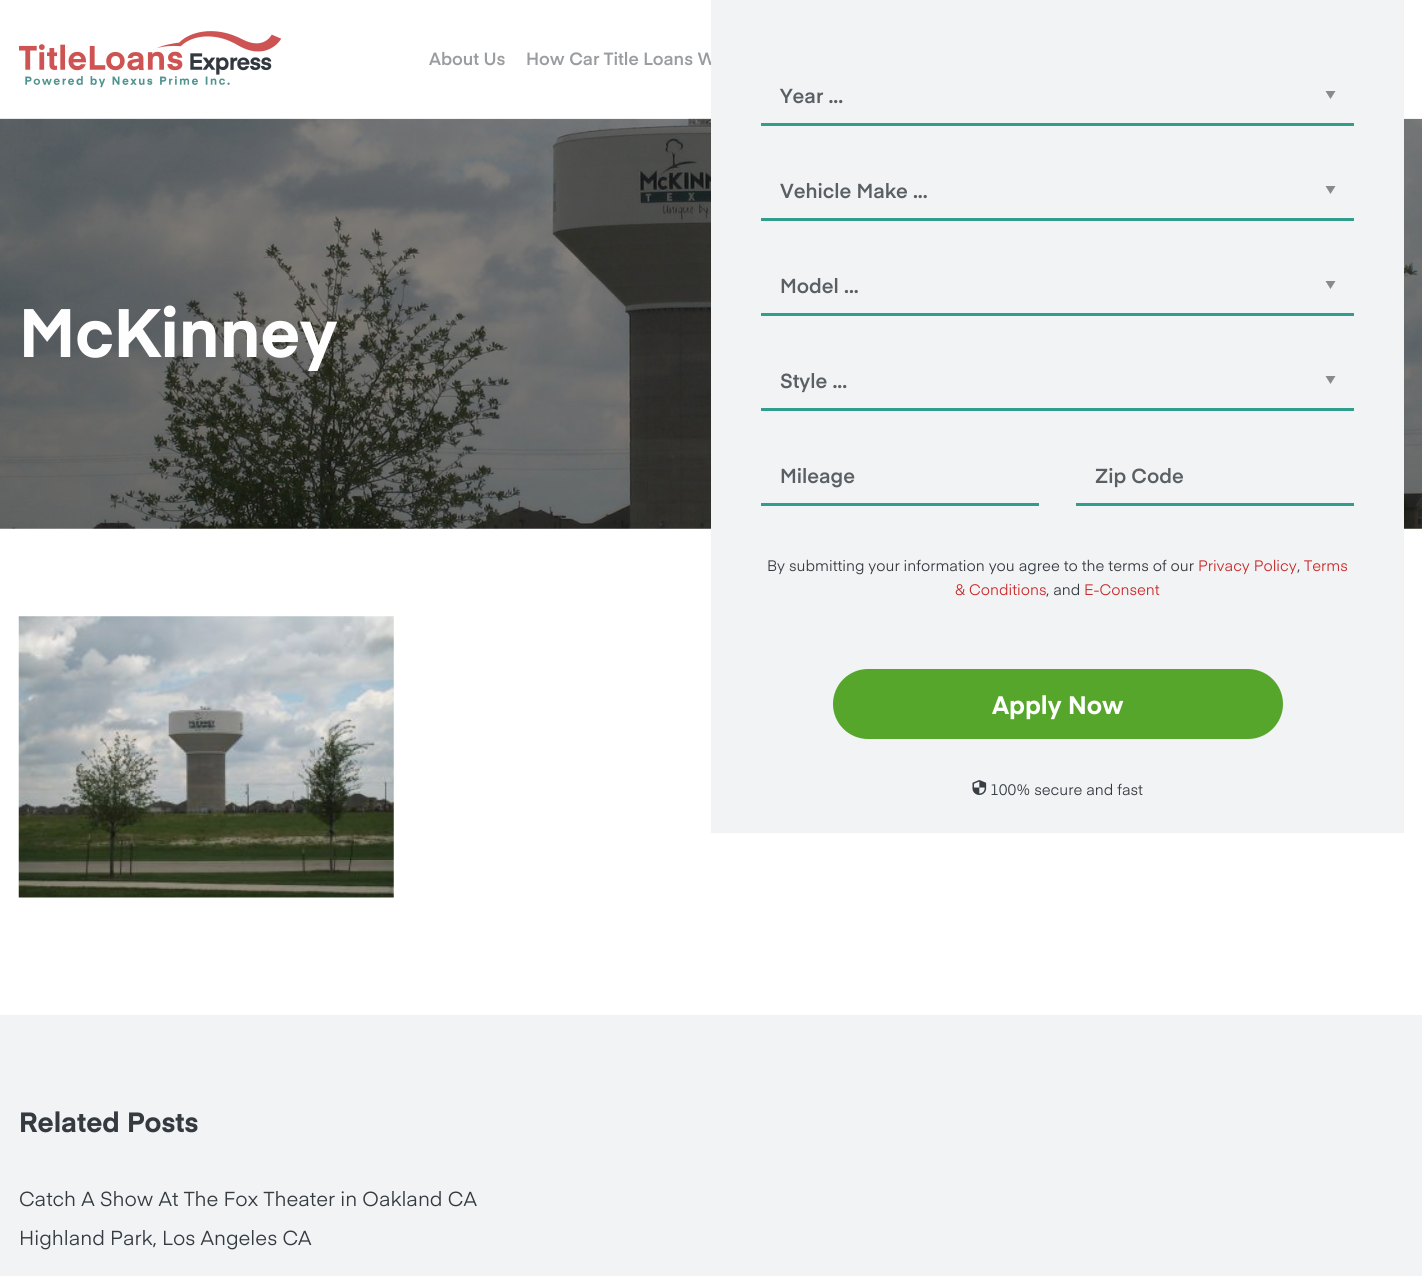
import math
import cairo


def use_color(cr, r, g, b):
  cr.set_source_rgb(r / 255, g / 255, b / 255)

def text(cr, x, y, s, family, size, color, bold=False, italic=False):
  cr.select_font_face(family, cairo.FONT_SLANT_ITALIC if italic else cairo.FONT_SLANT_NORMAL, cairo.FONT_WEIGHT_BOLD if bold else cairo.FONT_WEIGHT_NORMAL)
  cr.set_font_size(size)
  use_color(cr, *color)
  cr.move_to(x, y)
  cr.show_text(s)

def box(cr, x, y, w, h, *color):
  use_color(cr, *color)
  cr.rectangle(x, y, w, h)
  cr.fill()

def round_rect(cr, x, y, w, h, r):
  cr.new_sub_path()
  for i, (u, v) in enumerate([(x + w - r, y + h - r), (x + r, y + h - r), (x + r, y + r), (x + w - r, y + r)]):
    cr.arc(u, v, r, i * math.pi / 2, (i + 1) * math.pi / 2)
  cr.close_path()

def picture(cr, path, x, y, w, h):
  cr.save()
  cr.set_source_surface(cairo.ImageSurface.create_from_png(path), x, y)
  cr.rectangle(x, y, w, h)
  cr.fill()
  cr.restore()

def draw(cr):
  use_color(cr, 255, 255, 255)
  cr.paint()
  picture(cr, "img_01.png", 19, 31, 262, 57)
  picture(cr, "img_02.png", 0, 118, 1422, 411)
  picture(cr, "img_03.png", 18, 616, 376, 282)
  box(cr, 0, 1015, 1422, 261, 241, 243, 245)
  text(cr, 429, 65, "About Us", "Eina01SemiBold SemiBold", 17.5, (154, 157, 160))
  text(cr, 526, 65, "How Car Title Loans W", "Eina01SemiBold SemiBold", 17.5, (154, 157, 160))
  text(cr, 19, 357, "McKinney", "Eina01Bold", 67.5, (254, 254, 254), bold=True)
  box(cr, 711, 0, 693, 833, 241, 243, 245)
  use_color(cr, 138, 138, 138)
  cr.new_path()
  cr.move_to(1325.5, 91)
  cr.line_to(1335.5, 91)
  cr.line_to(1330.5, 99)
  cr.close_path()
  cr.fill()
  box(cr, 761, 123, 593, 3, 49, 157, 141)
  text(cr, 780, 103, "Year ...", "Eina01SemiBold SemiBold", 20, (90, 95, 100))
  use_color(cr, 138, 138, 138)
  cr.new_path()
  cr.move_to(1325.5, 186)
  cr.line_to(1335.5, 186)
  cr.line_to(1330.5, 194)
  cr.close_path()
  cr.fill()
  box(cr, 761, 218, 593, 3, 49, 157, 141)
  text(cr, 780, 198, "Vehicle Make ...", "Eina01SemiBold SemiBold", 20, (90, 95, 100))
  use_color(cr, 138, 138, 138)
  cr.new_path()
  cr.move_to(1325.5, 281)
  cr.line_to(1335.5, 281)
  cr.line_to(1330.5, 289)
  cr.close_path()
  cr.fill()
  box(cr, 761, 313, 593, 3, 49, 157, 141)
  text(cr, 780, 293, "Model ...", "Eina01SemiBold SemiBold", 20, (90, 95, 100))
  use_color(cr, 138, 138, 138)
  cr.new_path()
  cr.move_to(1325.5, 376)
  cr.line_to(1335.5, 376)
  cr.line_to(1330.5, 384)
  cr.close_path()
  cr.fill()
  box(cr, 761, 408, 593, 3, 49, 157, 141)
  text(cr, 780, 388, "Style ...", "Eina01SemiBold SemiBold", 20, (90, 95, 100))
  box(cr, 761, 503, 278, 3, 49, 157, 141)
  text(cr, 780, 483, "Mileage", "Eina01SemiBold SemiBold", 20, (90, 95, 100))
  box(cr, 1076, 503, 278, 3, 49, 157, 141)
  text(cr, 1095, 483, "Zip Code", "Eina01SemiBold SemiBold", 20, (90, 95, 100))
  text(cr, 767, 571, "By submitting your information you agree to the terms of our", "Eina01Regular", 15, (52, 58, 64))
  text(cr, 1198, 571, "Privacy Policy", "Eina01Regular", 15, (201, 43, 43))
  text(cr, 1297, 571, ",", "Eina01Regular", 15, (52, 58, 64))
  text(cr, 1304, 571, "Terms", "Eina01Regular", 15, (201, 43, 43))
  text(cr, 955, 595, "& Conditions", "Eina01Regular", 15, (201, 43, 43))
  text(cr, 1046, 595, ", and", "Eina01Regular", 15, (52, 58, 64))
  text(cr, 1084, 595, "E-Consent", "Eina01Regular", 15, (201, 43, 43))
  use_color(cr, 86, 166, 43)
  round_rect(cr, 833, 669, 450, 70, 35)
  cr.fill()
  text(cr, 992, 714, "Apply Now", "Eina01Bold", 25, (254, 254, 254), bold=True)
  picture(cr, "img_04.png", 972, 780, 15, 15)
  text(cr, 990, 795, "100% secure and fast", "Eina01Regular", 15, (52, 58, 64))
  text(cr, 19, 1132, "Related Posts", "Eina01Bold", 27.5, (52, 58, 64), bold=True)
  text(cr, 19, 1206, "Catch A Show At The Fox Theater in Oakland CA", "Eina01Regular", 20, (52, 58, 64))
  text(cr, 19, 1245, "Highland Park, Los Angeles CA", "Eina01Regular", 20, (52, 58, 64))


surface = cairo.ImageSurface(cairo.FORMAT_RGB24, 1422, 1276)
cr = cairo.Context(surface)
options = cairo.FontOptions()
options.set_hint_metrics(cairo.HINT_METRICS_OFF)
options.set_hint_style(cairo.HINT_STYLE_NONE)
cr.set_font_options(options)
cr.set_miter_limit(4)
draw(cr)
surface.write_to_png("out.png")
